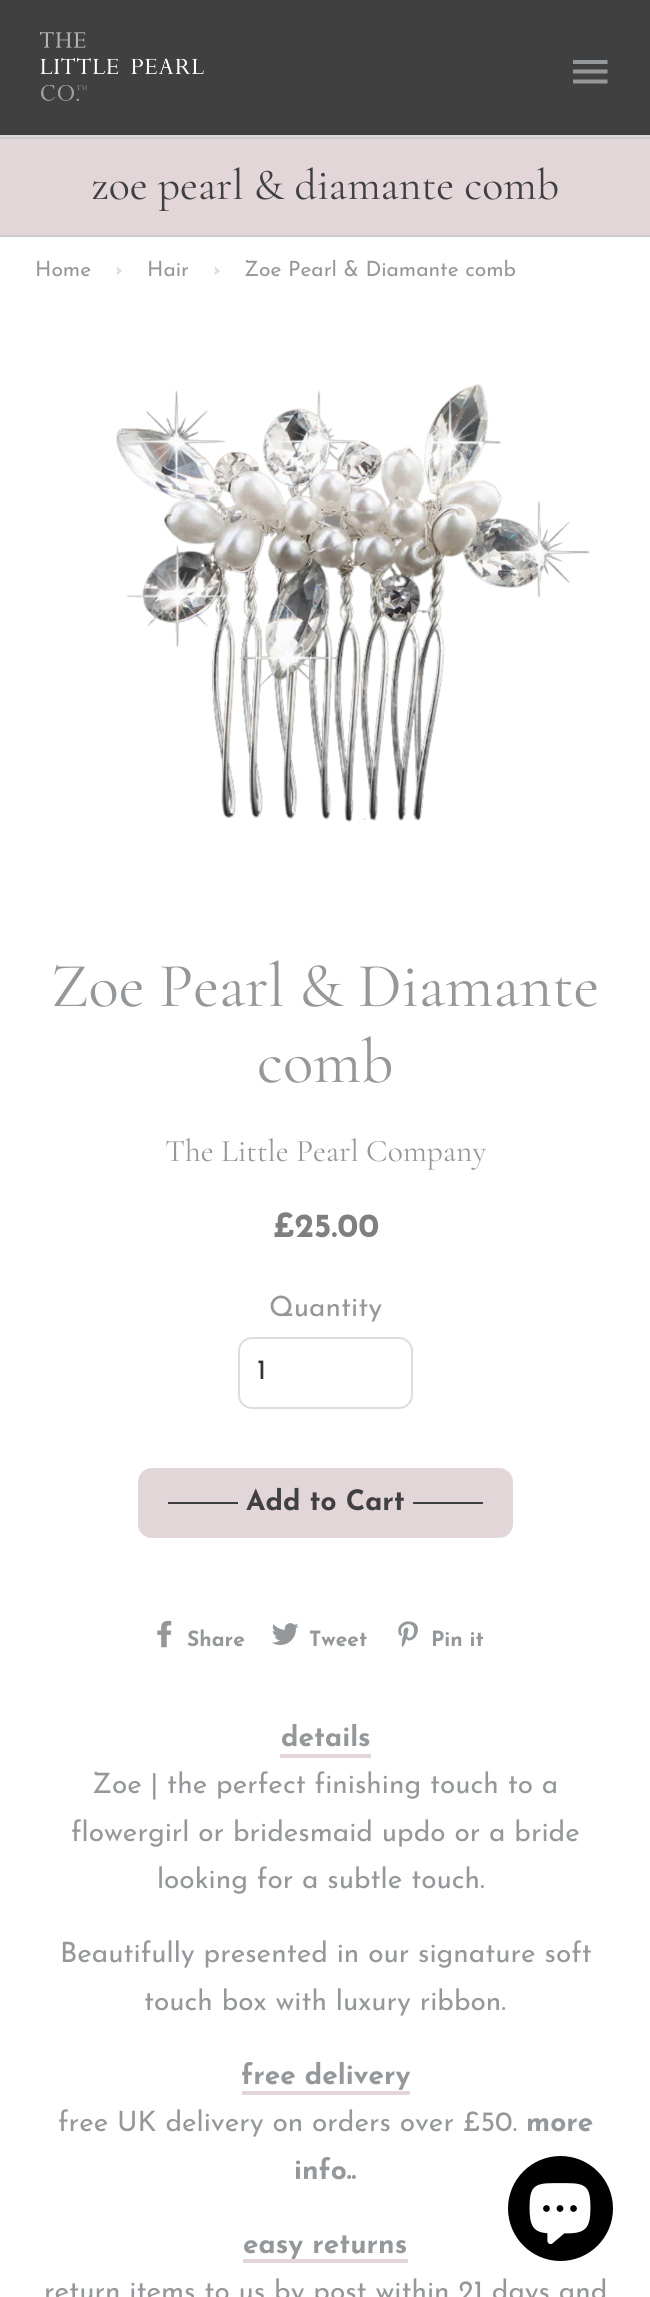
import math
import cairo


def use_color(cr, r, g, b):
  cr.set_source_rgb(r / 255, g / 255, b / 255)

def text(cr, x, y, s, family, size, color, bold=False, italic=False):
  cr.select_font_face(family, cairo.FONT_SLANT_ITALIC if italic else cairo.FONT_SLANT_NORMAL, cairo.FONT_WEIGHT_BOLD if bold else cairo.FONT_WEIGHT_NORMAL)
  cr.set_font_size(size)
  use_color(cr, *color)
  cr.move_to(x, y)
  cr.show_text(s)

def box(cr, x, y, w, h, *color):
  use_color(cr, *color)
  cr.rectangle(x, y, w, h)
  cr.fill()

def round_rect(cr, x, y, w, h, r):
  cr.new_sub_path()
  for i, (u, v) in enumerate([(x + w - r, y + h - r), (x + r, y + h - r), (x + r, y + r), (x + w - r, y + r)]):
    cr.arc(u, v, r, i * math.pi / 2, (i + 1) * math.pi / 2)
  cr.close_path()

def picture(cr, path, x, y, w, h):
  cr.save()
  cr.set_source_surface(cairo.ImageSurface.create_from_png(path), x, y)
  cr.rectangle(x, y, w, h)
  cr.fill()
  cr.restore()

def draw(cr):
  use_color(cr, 255, 255, 255)
  cr.paint()
  box(cr, 0, 0, 650, 135, 64, 64, 64)
  box(cr, 0, 135, 650, 2, 226, 214, 216)
  picture(cr, "img_01.png", 40, 31, 164, 70)
  use_color(cr, 149, 152, 154)
  cr.new_path()
  cr.move_to(573, 60)
  cr.line_to(607.5, 60)
  cr.line_to(607.5, 64)
  cr.line_to(573, 64)
  cr.close_path()
  cr.move_to(573, 69.5)
  cr.line_to(607.5, 69.5)
  cr.line_to(607.5, 73.5)
  cr.line_to(573, 73.5)
  cr.close_path()
  cr.move_to(573, 79.5)
  cr.line_to(607.5, 79.5)
  cr.line_to(607.5, 83.5)
  cr.line_to(573, 83.5)
  cr.close_path()
  cr.fill()
  box(cr, 0, 139, 650, 96, 226, 214, 216)
  box(cr, 0, 137, 650, 2, 204, 204, 204)
  box(cr, 0, 235, 650, 2, 204, 204, 204)
  picture(cr, "img_02.png", 116, 384, 474, 438)
  round_rect(cr, 239, 1338, 173, 70, 13)
  use_color(cr, 221, 221, 221)
  cr.stroke()
  use_color(cr, 226, 214, 216)
  round_rect(cr, 138, 1468, 375, 70, 14)
  cr.fill()
  box(cr, 168, 1502, 70, 2, 64, 64, 64)
  box(cr, 413, 1502, 70, 2, 64, 64, 64)
  picture(cr, "img_03.png", 157, 1620, 15, 28)
  picture(cr, "img_04.png", 272, 1623, 27, 22)
  picture(cr, "img_05.png", 398, 1621, 20, 26)
  box(cr, 280, 1754, 91, 4, 226, 214, 216)
  box(cr, 242, 2091, 168, 4, 226, 214, 216)
  box(cr, 243, 2259, 165, 4, 226, 214, 216)
  use_color(cr, 0, 0, 0)
  cr.arc(560.5, 2208.5, 52.5, 0, 2 * math.pi)
  cr.fill()
  picture(cr, "img_06.png", 529, 2183, 62, 61)
  text(cr, 91, 199, "zoe pearl & diamante comb", "Cormorant Garamond Light", 43.75, (64, 64, 64))
  text(cr, 35, 276, "Home", "Josefin Sans", 21, (149, 152, 154))
  text(cr, 115, 276, "›", "Josefin Sans", 21, (226, 214, 216), bold=True)
  text(cr, 147, 276, "Hair", "Josefin Sans", 21, (149, 152, 154))
  text(cr, 213, 276, "›", "Josefin Sans", 21, (226, 214, 216), bold=True)
  text(cr, 244, 276, "Zoe Pearl & Diamante comb", "Josefin Sans", 21, (149, 152, 154))
  text(cr, 51, 1006, "Zoe Pearl & Diamante", "Cormorant Garamond Light", 63, (149, 152, 154))
  text(cr, 257, 1082, "comb", "Cormorant Garamond Light", 63, (149, 152, 154))
  text(cr, 165, 1161, "The Little Pearl Company", "Cormorant Garamond Light", 31.5, (149, 152, 154))
  text(cr, 272, 1237, "£25.00", "Josefin Sans", 33.5, (127, 127, 127), bold=True)
  text(cr, 269, 1316, "Quantity", "Josefin Sans", 28, (149, 152, 154))
  text(cr, 257, 1379, "1", "Josefin Sans", 28, (51, 51, 51))
  text(cr, 246, 1510, "Add to Cart", "Josefin Sans", 28, (64, 64, 64), bold=True)
  text(cr, 187, 1646, "Share", "Josefin Sans", 21, (149, 152, 154), bold=True)
  text(cr, 309, 1646, "Tweet", "Josefin Sans", 21, (149, 152, 154), bold=True)
  text(cr, 431, 1646, "Pin it", "Josefin Sans", 21, (149, 152, 154), bold=True)
  text(cr, 281, 1746, "details", "Josefin Sans", 28, (149, 152, 154), bold=True)
  text(cr, 92, 1793, "Zoe | the perfect finishing touch to a", "Josefin Sans", 28, (149, 152, 154))
  text(cr, 71, 1841, "flowergirl or bridesmaid updo or a bride", "Josefin Sans", 28, (149, 152, 154))
  text(cr, 157, 1888, "looking for a subtle touch.", "Josefin Sans", 28, (149, 152, 154))
  text(cr, 60, 1962, "Beautifully presented in our signature soft", "Josefin Sans", 28, (149, 152, 154))
  text(cr, 144, 2010, "touch box with luxury ribbon.", "Josefin Sans", 28, (149, 152, 154))
  text(cr, 241, 2084, "free delivery", "Josefin Sans", 28, (149, 152, 154), bold=True)
  text(cr, 58, 2131, "free UK delivery on orders over £50.", "Josefin Sans", 28, (149, 152, 154))
  text(cr, 526, 2131, "more", "Josefin Sans", 28, (149, 152, 154), bold=True)
  text(cr, 294, 2179, "info..", "Josefin Sans", 28, (149, 152, 154), bold=True)
  text(cr, 243, 2253, "easy returns", "Josefin Sans", 28, (149, 152, 154), bold=True)
  text(cr, 44, 2300, "return items to us by post within 21 days and", "Josefin Sans", 28, (149, 152, 154))


surface = cairo.ImageSurface(cairo.FORMAT_RGB24, 650, 2297)
cr = cairo.Context(surface)
options = cairo.FontOptions()
options.set_hint_metrics(cairo.HINT_METRICS_OFF)
options.set_hint_style(cairo.HINT_STYLE_NONE)
cr.set_font_options(options)
cr.set_miter_limit(4)
draw(cr)
surface.write_to_png("out.png")
